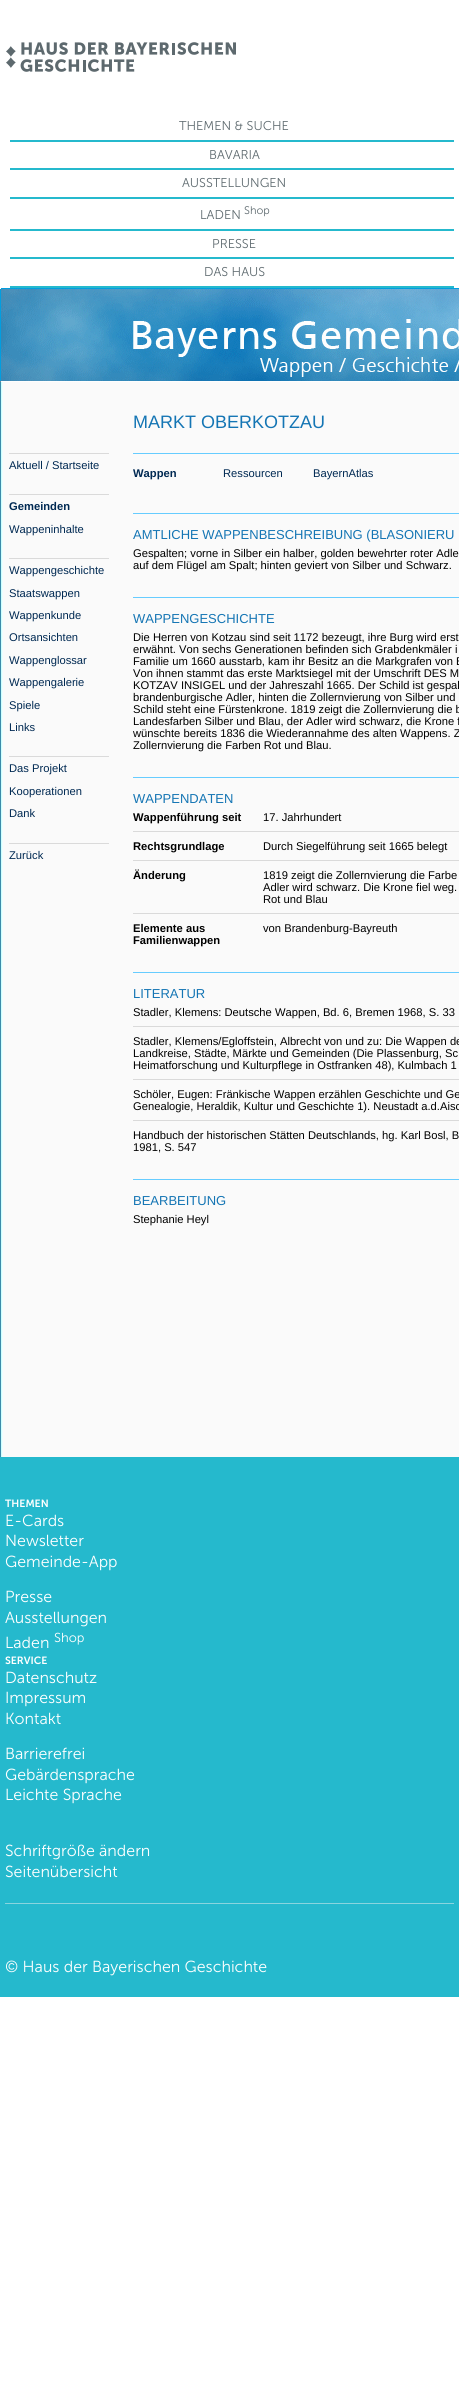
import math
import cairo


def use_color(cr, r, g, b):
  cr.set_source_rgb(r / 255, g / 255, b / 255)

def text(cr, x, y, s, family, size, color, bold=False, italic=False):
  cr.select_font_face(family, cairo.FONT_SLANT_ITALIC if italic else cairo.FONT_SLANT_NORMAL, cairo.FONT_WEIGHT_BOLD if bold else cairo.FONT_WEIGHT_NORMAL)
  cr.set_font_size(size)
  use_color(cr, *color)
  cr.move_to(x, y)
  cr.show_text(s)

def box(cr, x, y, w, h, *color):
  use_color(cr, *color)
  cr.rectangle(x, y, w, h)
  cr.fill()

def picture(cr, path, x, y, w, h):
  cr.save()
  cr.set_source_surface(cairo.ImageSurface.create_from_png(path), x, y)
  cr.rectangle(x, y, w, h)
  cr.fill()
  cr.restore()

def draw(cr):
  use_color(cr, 255, 255, 255)
  cr.paint()
  picture(cr, "img_01.png", 6, 42, 230, 30)
  box(cr, 10, 140, 444, 2, 37, 185, 205)
  box(cr, 10, 168, 444, 2, 37, 185, 205)
  box(cr, 10, 197, 444, 2, 37, 185, 205)
  box(cr, 10, 229, 444, 2, 37, 185, 205)
  box(cr, 10, 257, 444, 2, 37, 185, 205)
  box(cr, 10, 286, 444, 2, 37, 185, 205)
  picture(cr, "img_02.png", 0, 288, 459, 94)
  picture(cr, "img_03.png", 0, 382, 459, 1075)
  box(cr, 9, 453, 100, 1, 218, 218, 218)
  box(cr, 9, 494, 100, 1, 218, 218, 218)
  box(cr, 9, 558, 100, 1, 218, 218, 218)
  box(cr, 9, 756, 100, 1, 218, 218, 218)
  box(cr, 9, 843, 100, 1, 218, 218, 218)
  box(cr, 133, 453, 326, 1, 102, 204, 255)
  box(cr, 133, 513, 326, 1, 102, 204, 255)
  box(cr, 133, 597, 326, 1, 102, 204, 255)
  box(cr, 133, 777, 326, 1, 102, 204, 255)
  box(cr, 133, 831, 326, 1, 218, 218, 218)
  box(cr, 133, 860, 326, 1, 218, 218, 218)
  box(cr, 133, 913, 326, 1, 218, 218, 218)
  box(cr, 133, 972, 326, 1, 102, 204, 255)
  box(cr, 133, 1026, 326, 1, 218, 218, 218)
  box(cr, 133, 1079, 326, 1, 218, 218, 218)
  box(cr, 133, 1120, 326, 1, 218, 218, 218)
  box(cr, 133, 1179, 326, 1, 102, 204, 255)
  box(cr, 0, 1457, 459, 540, 37, 185, 205)
  box(cr, 5, 1903, 449, 1, 138, 212, 222)
  text(cr, 179, 130, "THEMEN & SUCHE", "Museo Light", 12.75, (93, 105, 110))
  text(cr, 209, 159, "BAVARIA", "Museo Light", 12.75, (93, 105, 110))
  text(cr, 182, 187, "AUSSTELLUNGEN", "Museo Light", 12.75, (93, 105, 110))
  text(cr, 200, 219, "LADEN", "Museo Light", 12.75, (93, 105, 110))
  text(cr, 244, 214, "Shop", "Museo Light", 11, (93, 105, 110))
  text(cr, 212, 248, "PRESSE", "Museo Light", 12.75, (93, 105, 110))
  text(cr, 204, 276, "DAS HAUS", "Museo Light", 12.75, (93, 105, 110))
  text(cr, 9, 469, "Aktuell / Startseite", "Liberation Sans", 11.2, (0, 41, 82))
  text(cr, 9, 510, "Gemeinden", "Liberation Sans", 11.2, (0, 41, 82), bold=True)
  text(cr, 9, 533, "Wappeninhalte", "Liberation Sans", 11.2, (0, 41, 82))
  text(cr, 9, 574, "Wappengeschichte", "Liberation Sans", 11.2, (0, 41, 82))
  text(cr, 9, 597, "Staatswappen", "Liberation Sans", 11.2, (0, 41, 82))
  text(cr, 9, 619, "Wappenkunde", "Liberation Sans", 11.2, (0, 41, 82))
  text(cr, 9, 641, "Ortsansichten", "Liberation Sans", 11.2, (0, 41, 82))
  text(cr, 9, 664, "Wappenglossar", "Liberation Sans", 11.2, (0, 41, 82))
  text(cr, 9, 686, "Wappengalerie", "Liberation Sans", 11.2, (0, 41, 82))
  text(cr, 9, 709, "Spiele", "Liberation Sans", 11.2, (0, 41, 82))
  text(cr, 9, 731, "Links", "Liberation Sans", 11.2, (0, 41, 82))
  text(cr, 9, 772, "Das Projekt", "Liberation Sans", 11.2, (0, 41, 82))
  text(cr, 9, 795, "Kooperationen", "Liberation Sans", 11.2, (0, 41, 82))
  text(cr, 9, 817, "Dank", "Liberation Sans", 11.2, (0, 41, 82))
  text(cr, 9, 859, "Zurück", "Liberation Sans", 11.2, (0, 41, 82))
  text(cr, 133, 428, "MARKT OBERKOTZAU", "Liberation Sans", 18, (20, 117, 180))
  text(cr, 133, 477, "Wappen", "Liberation Sans", 11.2, (0, 41, 82), bold=True)
  text(cr, 223, 477, "Ressourcen", "Liberation Sans", 11.2, (0, 41, 82))
  text(cr, 313, 477, "BayernAtlas", "Liberation Sans", 11.2, (0, 41, 82))
  text(cr, 133, 539, "AMTLICHE WAPPENBESCHREIBUNG (BLASONIERU", "Liberation Sans", 13, (20, 117, 180))
  text(cr, 133, 557, "Gespalten; vorne in Silber ein halber, golden bewehrter roter Adle", "Liberation Sans", 11.2, (0, 0, 0))
  text(cr, 133, 569, "auf dem Flügel am Spalt; hinten geviert von Silber und Schwarz.", "Liberation Sans", 11.2, (0, 0, 0))
  text(cr, 133, 623, "WAPPENGESCHICHTE", "Liberation Sans", 13, (20, 117, 180))
  text(cr, 133, 641, "Die Herren von Kotzau sind seit 1172 bezeugt, ihre Burg wird erst", "Liberation Sans", 11.2, (0, 0, 0))
  text(cr, 133, 653, "erwähnt. Von sechs Generationen befinden sich Grabdenkmäler i", "Liberation Sans", 11.2, (0, 0, 0))
  text(cr, 133, 665, "Familie um 1660 ausstarb, kam ihr Besitz an die Markgrafen von B", "Liberation Sans", 11.2, (0, 0, 0))
  text(cr, 133, 677, "Von ihnen stammt das erste Marktsiegel mit der Umschrift DES M", "Liberation Sans", 11.2, (0, 0, 0))
  text(cr, 133, 689, "KOTZAV INSIGEL und der Jahreszahl 1665. Der Schild ist gespal", "Liberation Sans", 11.2, (0, 0, 0))
  text(cr, 133, 701, "brandenburgische Adler, hinten die Zollernvierung von Silber und", "Liberation Sans", 11.2, (0, 0, 0))
  text(cr, 133, 713, "Schild steht eine Fürstenkrone. 1819 zeigt die Zollernvierung die b", "Liberation Sans", 11.2, (0, 0, 0))
  text(cr, 133, 725, "Landesfarben Silber und Blau, der Adler wird schwarz, die Krone f", "Liberation Sans", 11.2, (0, 0, 0))
  text(cr, 133, 737, "wünschte bereits 1836 die Wiederannahme des alten Wappens. Z", "Liberation Sans", 11.2, (0, 0, 0))
  text(cr, 133, 749, "Zollernvierung die Farben Rot und Blau.", "Liberation Sans", 11.2, (0, 0, 0))
  text(cr, 133, 803, "WAPPENDATEN", "Liberation Sans", 13, (20, 117, 180))
  text(cr, 133, 821, "Wappenführung seit", "Liberation Sans", 11.2, (0, 0, 0), bold=True)
  text(cr, 263, 821, "17. Jahrhundert", "Liberation Sans", 11.2, (0, 0, 0))
  text(cr, 133, 850, "Rechtsgrundlage", "Liberation Sans", 11.2, (0, 0, 0), bold=True)
  text(cr, 263, 850, "Durch Siegelführung seit 1665 belegt", "Liberation Sans", 11.2, (0, 0, 0))
  text(cr, 133, 879, "Änderung", "Liberation Sans", 11.2, (0, 0, 0), bold=True)
  text(cr, 263, 879, "1819 zeigt die Zollernvierung die Farbe", "Liberation Sans", 11.2, (0, 0, 0))
  text(cr, 263, 891, "Adler wird schwarz. Die Krone fiel weg.", "Liberation Sans", 11.2, (0, 0, 0))
  text(cr, 263, 903, "Rot und Blau", "Liberation Sans", 11.2, (0, 0, 0))
  text(cr, 133, 932, "Elemente aus", "Liberation Sans", 11.2, (0, 0, 0), bold=True)
  text(cr, 133, 944, "Familienwappen", "Liberation Sans", 11.2, (0, 0, 0), bold=True)
  text(cr, 263, 932, "von Brandenburg-Bayreuth", "Liberation Sans", 11.2, (0, 0, 0))
  text(cr, 133, 998, "LITERATUR", "Liberation Sans", 13, (20, 117, 180))
  text(cr, 133, 1016, "Stadler, Klemens: Deutsche Wappen, Bd. 6, Bremen 1968, S. 33", "Liberation Sans", 11.2, (0, 0, 0))
  text(cr, 133, 1045, "Stadler, Klemens/Egloffstein, Albrecht von und zu: Die Wappen de", "Liberation Sans", 11.2, (0, 0, 0))
  text(cr, 133, 1057, "Landkreise, Städte, Märkte und Gemeinden (Die Plassenburg, Sc", "Liberation Sans", 11.2, (0, 0, 0))
  text(cr, 133, 1069, "Heimatforschung und Kulturpflege in Ostfranken 48), Kulmbach 1", "Liberation Sans", 11.2, (0, 0, 0))
  text(cr, 133, 1098, "Schöler, Eugen: Fränkische Wappen erzählen Geschichte und Ge", "Liberation Sans", 11.2, (0, 0, 0))
  text(cr, 133, 1110, "Genealogie, Heraldik, Kultur und Geschichte 1). Neustadt a.d.Aisc", "Liberation Sans", 11.2, (0, 0, 0))
  text(cr, 133, 1139, "Handbuch der historischen Stätten Deutschlands, hg. Karl Bosl, B", "Liberation Sans", 11.2, (0, 0, 0))
  text(cr, 133, 1151, "1981, S. 547", "Liberation Sans", 11.2, (0, 0, 0))
  text(cr, 133, 1205, "BEARBEITUNG", "Liberation Sans", 13, (20, 117, 180))
  text(cr, 133, 1223, "Stephanie Heyl", "Liberation Sans", 11.2, (0, 0, 0))
  text(cr, 5, 1507, "THEMEN", "Museo Sans SemiBold", 10.5, (255, 255, 255))
  text(cr, 5, 1526, "E-Cards", "Museo Light", 16, (255, 255, 255))
  text(cr, 5, 1546, "Newsletter", "Museo Light", 16, (255, 255, 255))
  text(cr, 5, 1567, "Gemeinde-App", "Museo Light", 16, (255, 255, 255))
  text(cr, 5, 1602, "Presse", "Museo Light", 16, (255, 255, 255))
  text(cr, 5, 1623, "Ausstellungen", "Museo Light", 16, (255, 255, 255))
  text(cr, 5, 1648, "Laden", "Museo Light", 16, (255, 255, 255))
  text(cr, 54, 1642, "Shop", "Museo Light", 13, (255, 255, 255))
  text(cr, 5, 1664, "SERVICE", "Museo Sans SemiBold", 10.5, (255, 255, 255))
  text(cr, 5, 1683, "Datenschutz", "Museo Light", 16, (255, 255, 255))
  text(cr, 5, 1703, "Impressum", "Museo Light", 16, (255, 255, 255))
  text(cr, 5, 1724, "Kontakt", "Museo Light", 16, (255, 255, 255))
  text(cr, 5, 1759, "Barrierefrei", "Museo Light", 16, (255, 255, 255))
  text(cr, 5, 1780, "Gebärdensprache", "Museo Light", 16, (255, 255, 255))
  text(cr, 5, 1800, "Leichte Sprache", "Museo Light", 16, (255, 255, 255))
  text(cr, 5, 1856, "Schriftgröße ändern", "Museo Light", 16, (255, 255, 255))
  text(cr, 5, 1877, "Seitenübersicht", "Museo Light", 16, (255, 255, 255))
  text(cr, 5, 1972, "© Haus der Bayerischen Geschichte", "Museo Light", 16, (255, 255, 255))


surface = cairo.ImageSurface(cairo.FORMAT_RGB24, 459, 2405)
cr = cairo.Context(surface)
options = cairo.FontOptions()
options.set_hint_metrics(cairo.HINT_METRICS_OFF)
options.set_hint_style(cairo.HINT_STYLE_NONE)
cr.set_font_options(options)
cr.set_miter_limit(4)
draw(cr)
surface.write_to_png("out.png")
